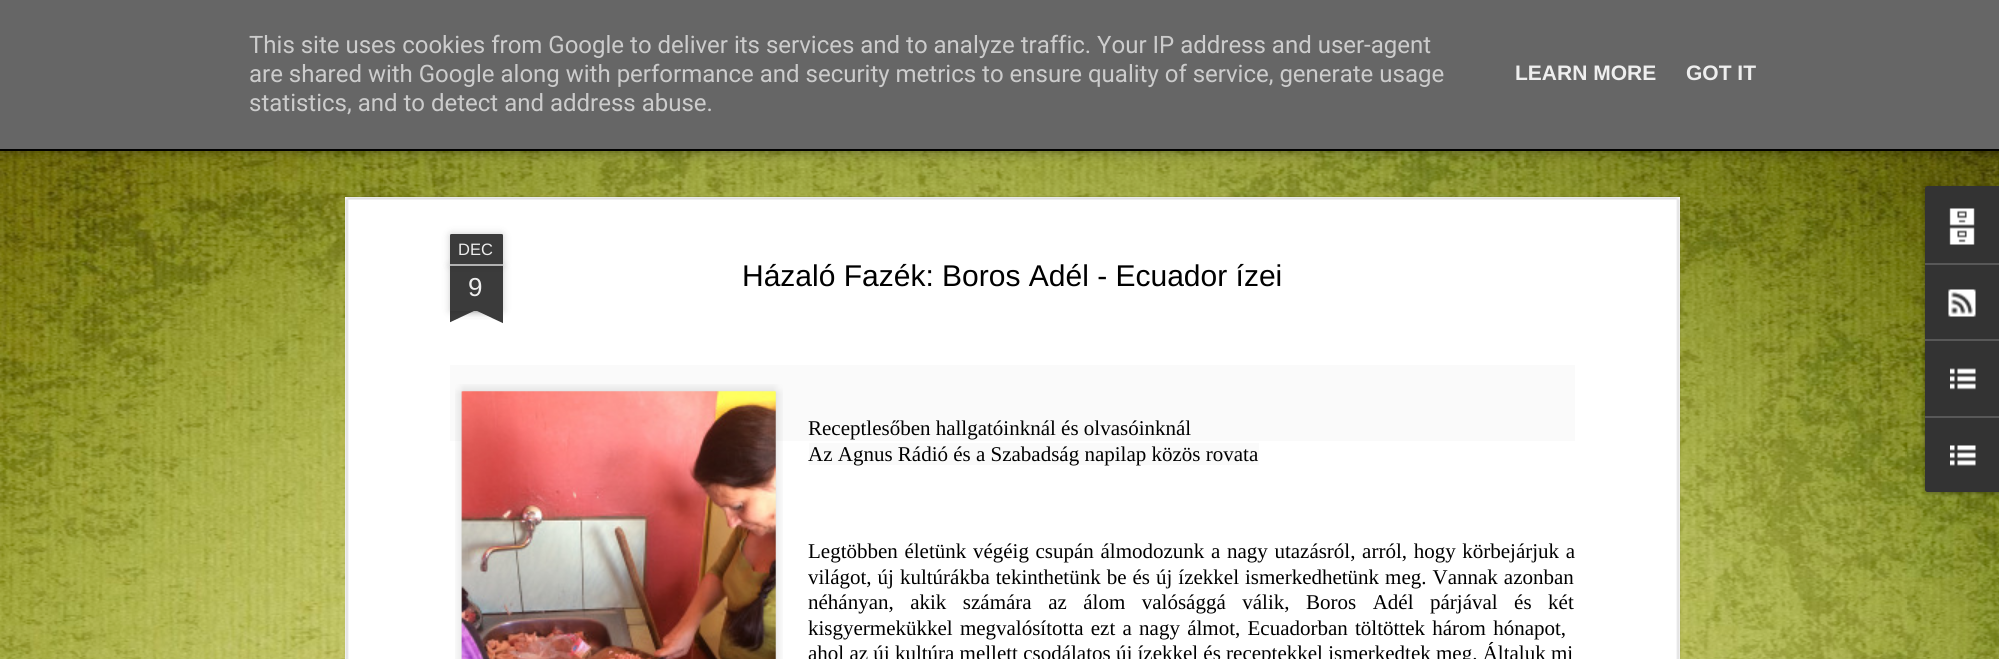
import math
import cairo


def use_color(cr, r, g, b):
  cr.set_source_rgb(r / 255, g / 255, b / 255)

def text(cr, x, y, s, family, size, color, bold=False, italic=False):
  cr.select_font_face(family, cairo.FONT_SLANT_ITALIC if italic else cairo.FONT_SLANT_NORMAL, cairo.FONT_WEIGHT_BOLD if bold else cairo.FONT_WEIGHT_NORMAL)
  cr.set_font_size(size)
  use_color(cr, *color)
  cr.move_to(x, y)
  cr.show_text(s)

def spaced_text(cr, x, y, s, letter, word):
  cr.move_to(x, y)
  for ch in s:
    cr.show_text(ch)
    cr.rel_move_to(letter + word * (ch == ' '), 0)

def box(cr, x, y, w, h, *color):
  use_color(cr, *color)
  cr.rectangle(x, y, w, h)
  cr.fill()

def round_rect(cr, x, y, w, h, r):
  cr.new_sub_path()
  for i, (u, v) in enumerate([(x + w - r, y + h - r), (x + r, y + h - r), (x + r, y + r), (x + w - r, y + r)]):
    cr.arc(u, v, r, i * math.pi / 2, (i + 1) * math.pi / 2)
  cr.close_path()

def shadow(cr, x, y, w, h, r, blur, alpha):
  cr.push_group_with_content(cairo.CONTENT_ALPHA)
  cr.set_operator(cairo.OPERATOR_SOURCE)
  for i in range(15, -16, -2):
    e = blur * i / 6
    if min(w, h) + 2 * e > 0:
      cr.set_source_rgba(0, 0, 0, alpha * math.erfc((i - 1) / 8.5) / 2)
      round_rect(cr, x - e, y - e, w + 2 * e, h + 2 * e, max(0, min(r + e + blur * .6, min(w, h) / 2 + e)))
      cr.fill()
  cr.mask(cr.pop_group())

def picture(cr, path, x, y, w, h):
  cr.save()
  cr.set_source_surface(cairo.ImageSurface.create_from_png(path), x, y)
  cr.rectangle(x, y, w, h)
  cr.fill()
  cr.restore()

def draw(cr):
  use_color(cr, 0, 0, 0)
  cr.paint()
  picture(cr, "img_01.png", 0, 151, 1999, 508)
  shadow(cr, 0, 98, 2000, 52, 0, 6, 0.5)
  box(cr, 0, 0, 1999, 149, 102, 102, 102)
  box(cr, 345, 197, 1335, 462, 255, 255, 255)
  picture(cr, "img_02.png", 345, 196, 1336, 463)
  use_color(cr, 0, 0, 0)
  shadow(cr, 450, 266, 53, 45, 0, 4, 0.2)
  box(cr, 450, 266, 53, 45, 59, 59, 59)
  use_color(cr, 0, 0, 0)
  shadow(cr, 450, 234, 53, 32, 1.5, 4, 0.2)
  use_color(cr, 59, 59, 59)
  cr.new_path()
  cr.move_to(451.5, 234)
  cr.line_to(501.5, 234)
  cr.curve_to(502.5, 234, 503, 234.5, 503, 235.5)
  cr.line_to(503, 266)
  cr.line_to(450, 266)
  cr.line_to(450, 235.5)
  cr.curve_to(450, 234.5, 450.5, 234, 451.5, 234)
  cr.close_path()
  cr.fill()
  box(cr, 450, 264, 53, 2, 177, 177, 177)
  cr.save()
  cr.rectangle(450, 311, 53, 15)
  cr.clip()
  use_color(cr, 0, 0, 0)
  shadow(cr, 437, 296, 75, 15, 0, 4, 0.2)
  cr.restore()
  cr.save()
  cr.rectangle(450, 311, 53, 15)
  cr.clip()
  use_color(cr, 59, 59, 59)
  cr.new_path()
  cr.move_to(436, 312)
  cr.line_to(504, 280)
  cr.line_to(510, 294)
  cr.line_to(442, 326)
  cr.close_path()
  cr.fill()
  cr.restore()
  cr.save()
  cr.rectangle(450, 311, 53, 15)
  cr.clip()
  use_color(cr, 0, 0, 0)
  shadow(cr, 441, 296, 75, 15, 0, 4, 0.2)
  cr.restore()
  cr.save()
  cr.rectangle(450, 311, 53, 15)
  cr.clip()
  use_color(cr, 59, 59, 59)
  cr.new_path()
  cr.move_to(447, 280)
  cr.line_to(515, 312)
  cr.line_to(509, 326)
  cr.line_to(441, 294)
  cr.close_path()
  cr.fill()
  cr.restore()
  box(cr, 450, 365, 1125, 76, 250, 250, 250)
  picture(cr, "img_03.png", 455, 384, 328, 275)
  picture(cr, "img_04.png", 461, 391, 315, 268)
  box(cr, 809, 443, 450, 22, 250, 250, 250)
  use_color(cr, 0, 0, 0)
  shadow(cr, 1925, 188, 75, 306, 3, 2, 0.3)
  use_color(cr, 51, 51, 51)
  cr.new_path()
  cr.move_to(1928, 186)
  cr.line_to(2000, 186)
  cr.line_to(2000, 492)
  cr.line_to(1928, 492)
  cr.curve_to(1926.5, 492, 1925, 490.5, 1925, 489)
  cr.line_to(1925, 189)
  cr.curve_to(1925, 187.5, 1926.5, 186, 1928, 186)
  cr.close_path()
  cr.fill()
  cr.new_path()
  cr.move_to(1928, 186)
  cr.line_to(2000, 186)
  cr.line_to(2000, 263)
  cr.line_to(1925, 263)
  cr.line_to(1925, 189)
  cr.curve_to(1925, 187.5, 1926.5, 186, 1928, 186)
  cr.close_path()
  cr.fill()
  picture(cr, "img_05.png", 1949, 208, 26, 37)
  box(cr, 1925, 263, 74, 2, 88, 88, 88)
  picture(cr, "img_06.png", 1948, 289, 28, 28)
  box(cr, 1925, 339, 74, 2, 88, 88, 88)
  picture(cr, "img_07.png", 1950, 368, 26, 22)
  use_color(cr, 51, 51, 51)
  cr.new_path()
  cr.move_to(1925, 416)
  cr.line_to(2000, 416)
  cr.line_to(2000, 492)
  cr.line_to(1928, 492)
  cr.curve_to(1926.5, 492, 1925, 490.5, 1925, 489)
  cr.close_path()
  cr.fill()
  box(cr, 1925, 416, 74, 2, 88, 88, 88)
  picture(cr, "img_08.png", 1950, 445, 26, 21)
  text(cr, 249, 53, "This site uses cookies from Google to deliver its services and to analyze traffic. Your IP address and user-agent", "Roboto", 24, (204, 204, 204))
  text(cr, 249, 82, "are shared with Google along with performance and security metrics to ensure quality of service, generate usage", "Roboto", 24, (204, 204, 204))
  text(cr, 249, 111, "statistics, and to detect and address abuse.", "Roboto", 24, (204, 204, 204))
  text(cr, 1515, 80, "LEARN MORE", "Liberation Sans", 21, (238, 238, 238), bold=True)
  text(cr, 1686, 80, "GOT IT", "Liberation Sans", 21, (238, 238, 238), bold=True)
  text(cr, 458, 255, "DEC", "Liberation Sans", 16.5, (238, 238, 238))
  text(cr, 468, 296, "9", "Liberation Sans", 26, (238, 238, 238))
  text(cr, 742, 286, "Házaló Fazék: Boros Adél - Ecuador ízei", "Liberation Sans", 30, (0, 0, 0))
  text(cr, 808, 435, "Receptlesőben hallgatóinknál és olvasóinknál", "Liberation Serif", 21, (0, 0, 0))
  text(cr, 808, 461, "Az Agnus Rádió és a Szabadság napilap közös rovata", "Liberation Serif", 21, (0, 0, 0))
  spaced_text(cr, 808, 558, "Legtöbben életünk végéig csupán álmodozunk a nagy utazásról, arról, hogy körbejárjuk a", 0, 1.4)
  spaced_text(cr, 808, 584, "világot, új kultúrákba tekinthetünk be és új ízekkel ismerkedhetünk meg. Vannak azonban", 0, 0.75)
  spaced_text(cr, 808, 609, "néhányan, akik számára az álom valósággá válik, Boros Adél párjával és két", 0, 11.25)
  spaced_text(cr, 808, 635, "kisgyermekükkel megvalósította ezt a nagy álmot, Ecuadorban töltöttek három hónapot,", 0, 2)
  text(cr, 808, 660, "ahol az új kultúra mellett csodálatos új ízekkel és receptekkel ismerkedtek meg. Általuk mi", "Liberation Serif", 21, (0, 0, 0))


surface = cairo.ImageSurface(cairo.FORMAT_RGB24, 1999, 659)
cr = cairo.Context(surface)
options = cairo.FontOptions()
options.set_hint_metrics(cairo.HINT_METRICS_OFF)
options.set_hint_style(cairo.HINT_STYLE_NONE)
cr.set_font_options(options)
cr.set_miter_limit(4)
draw(cr)
surface.write_to_png("out.png")
